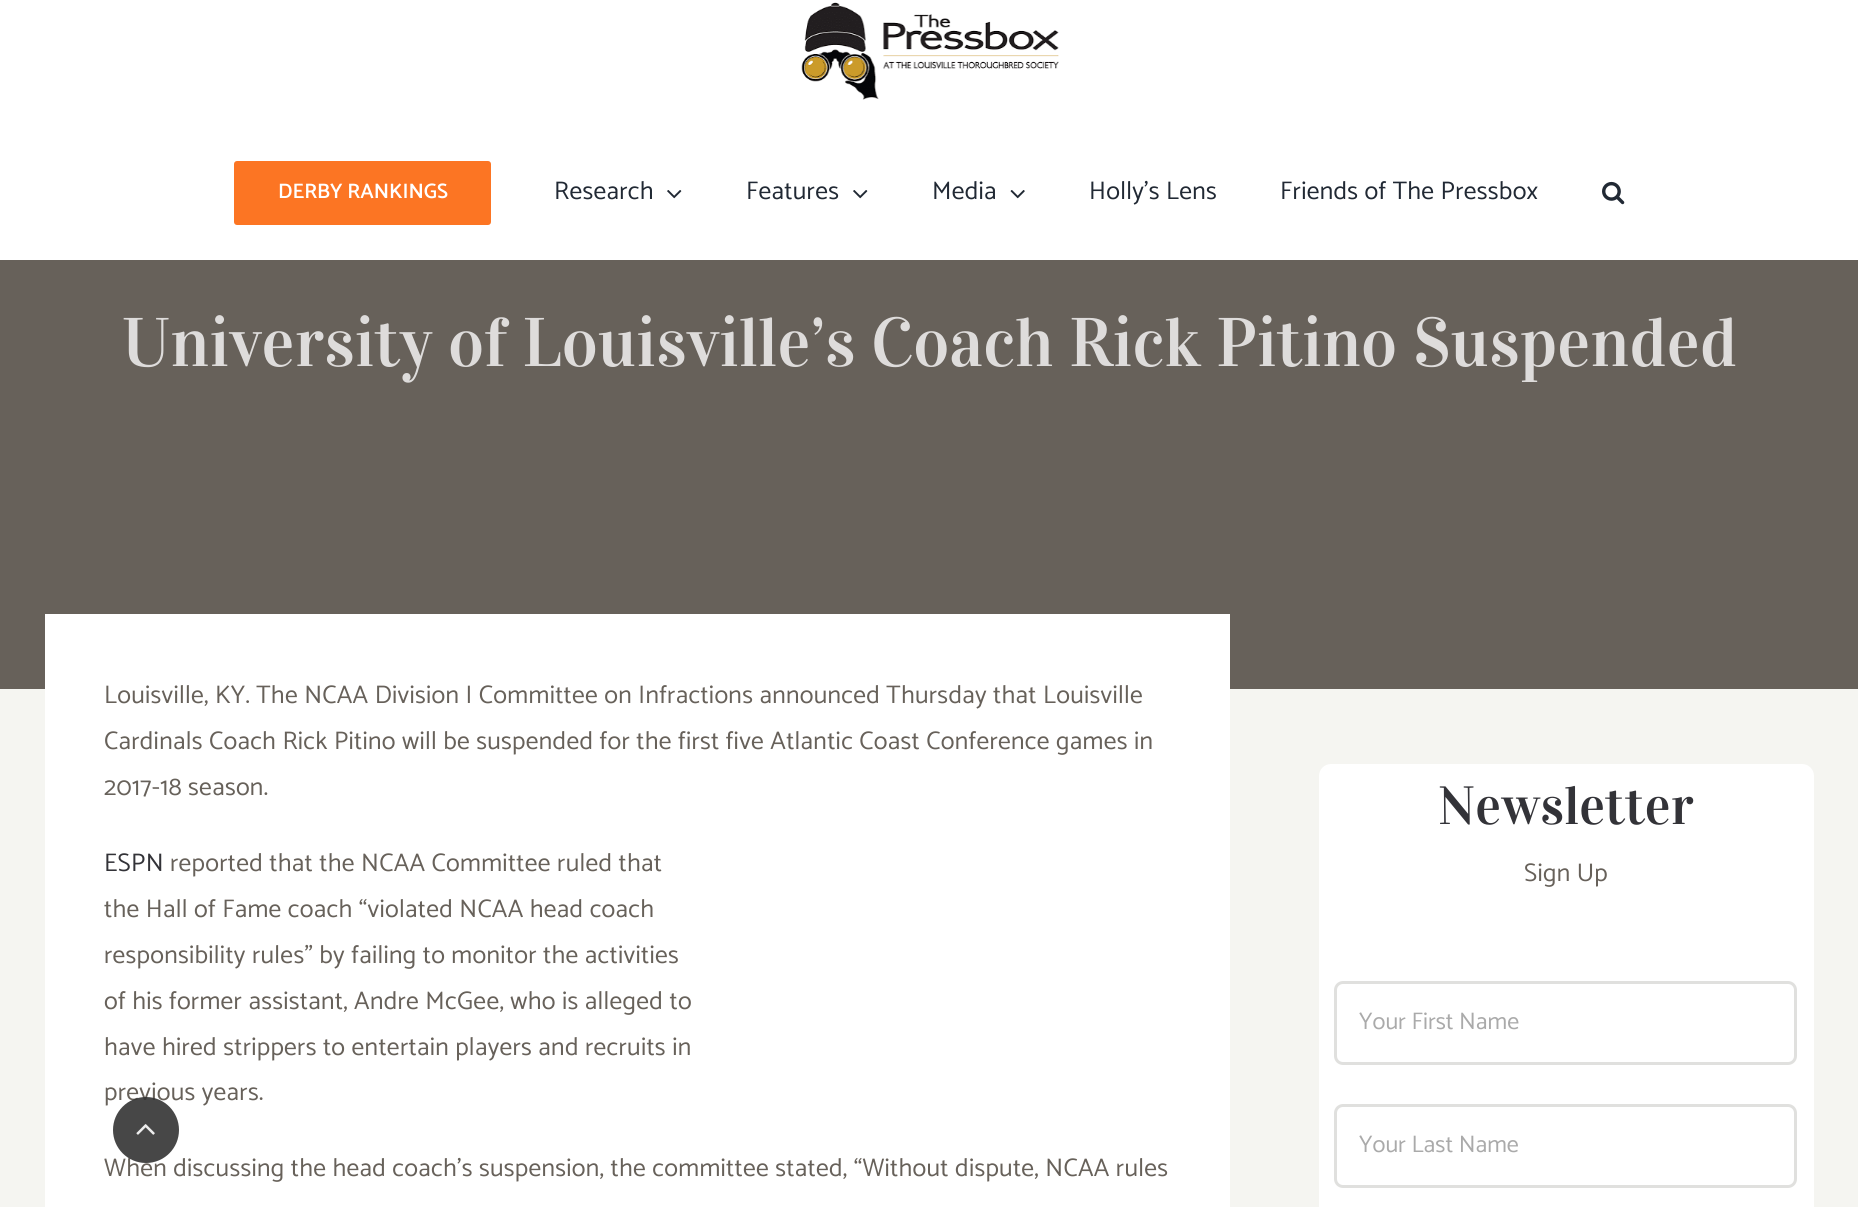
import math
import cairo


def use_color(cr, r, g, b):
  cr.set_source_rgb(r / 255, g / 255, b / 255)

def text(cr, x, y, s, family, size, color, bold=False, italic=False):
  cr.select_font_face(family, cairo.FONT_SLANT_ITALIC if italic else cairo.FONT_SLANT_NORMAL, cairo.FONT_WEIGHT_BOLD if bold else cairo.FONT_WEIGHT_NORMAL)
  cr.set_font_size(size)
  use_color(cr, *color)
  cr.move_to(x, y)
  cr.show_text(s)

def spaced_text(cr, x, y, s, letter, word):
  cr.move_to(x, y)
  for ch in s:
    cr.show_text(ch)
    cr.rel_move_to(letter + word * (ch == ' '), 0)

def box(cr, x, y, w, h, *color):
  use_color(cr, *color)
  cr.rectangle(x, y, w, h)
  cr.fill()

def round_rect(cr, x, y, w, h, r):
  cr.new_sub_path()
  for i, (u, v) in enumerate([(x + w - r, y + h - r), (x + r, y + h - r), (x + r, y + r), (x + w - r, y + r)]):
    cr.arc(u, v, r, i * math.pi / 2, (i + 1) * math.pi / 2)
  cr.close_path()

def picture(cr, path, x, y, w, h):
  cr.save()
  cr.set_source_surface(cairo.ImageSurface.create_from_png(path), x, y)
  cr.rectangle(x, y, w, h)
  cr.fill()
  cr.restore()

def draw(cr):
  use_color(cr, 245, 245, 241)
  cr.paint()
  box(cr, 0, 0, 1858, 260, 255, 255, 255)
  picture(cr, "img_01.png", 801, 2, 258, 98)
  use_color(cr, 252, 117, 35)
  round_rect(cr, 234, 161, 257, 64, 3)
  cr.fill()
  picture(cr, "img_02.png", 667, 190, 15, 9)
  picture(cr, "img_02.png", 853, 190, 15, 9)
  picture(cr, "img_03.png", 1010, 190, 15, 9)
  picture(cr, "img_04.png", 1602, 181, 23, 24)
  box(cr, 0, 260, 1858, 429, 103, 97, 90)
  box(cr, 45, 614, 1185, 593, 255, 255, 255)
  round_rect(cr, 1319, 764, 495, 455, 12)
  cr.fill()
  round_rect(cr, 1335.5, 982.5, 460, 81, 7.5)
  use_color(cr, 224, 224, 222)
  cr.set_line_width(3)
  cr.stroke()
  round_rect(cr, 1335.5, 1105.5, 460, 81, 7.5)
  cr.stroke()
  text(cr, 278, 198, "DERBY RANKINGS", "Catamaran SemiBold", 21, (255, 255, 255))
  cr.select_font_face("Catamaran")
  cr.set_font_size(25.5)
  use_color(cr, 33, 41, 52)
  spaced_text(cr, 554, 199, "Research", 0.3, 0)
  spaced_text(cr, 746, 199, "Features", 0.3, 0)
  spaced_text(cr, 932, 199, "Media", 0.3, 0)
  spaced_text(cr, 1089, 199, "Holly’s Lens", 0.3, 0)
  spaced_text(cr, 1280, 199, "Friends of The Pressbox", 0.3, 0)
  text(cr, 122, 366, "University of Louisville’s Coach Rick Pitino Suspended", "Vidaloka", 69, (222, 220, 219))
  cr.select_font_face("Catamaran")
  cr.set_font_size(25.5)
  use_color(cr, 103, 97, 90)
  spaced_text(cr, 104, 703, "Louisville, KY. The NCAA Division I Committee on Infractions announced Thursday that Louisville", 0.3, 0)
  spaced_text(cr, 104, 749, "Cardinals Coach Rick Pitino will be suspended for the first five Atlantic Coast Conference games in", 0.3, 0)
  spaced_text(cr, 104, 795, "2017-18 season.", 0.3, 0)
  use_color(cr, 51, 51, 56)
  spaced_text(cr, 104, 871, "ESPN", 0.3, 0)
  use_color(cr, 103, 97, 90)
  spaced_text(cr, 170, 871, "reported that the NCAA Committee ruled that", 0.3, 0)
  spaced_text(cr, 104, 917, "the Hall of Fame coach “violated NCAA head coach", 0.3, 0)
  spaced_text(cr, 104, 963, "responsibility rules” by failing to monitor the activities", 0.3, 0)
  spaced_text(cr, 104, 1009, "of his former assistant, Andre McGee, who is alleged to", 0.3, 0)
  spaced_text(cr, 104, 1055, "have hired strippers to entertain players and recruits in", 0.3, 0)
  spaced_text(cr, 104, 1100, "previous years.", 0.3, 0)
  spaced_text(cr, 104, 1176, "When discussing the head coach’s suspension, the committee stated, “Without dispute, NCAA rules", 0.3, 0)
  text(cr, 1438, 824, "Newsletter", "Vidaloka", 54, (51, 51, 56))
  cr.select_font_face("Catamaran")
  cr.set_font_size(25.5)
  use_color(cr, 103, 97, 90)
  spaced_text(cr, 1524, 881, "Sign Up", 0.3, 0)
  text(cr, 1359, 1029, "Your First Name", "Catamaran", 24, (170, 170, 170))
  text(cr, 1359, 1152, "Your Last Name", "Catamaran", 24, (170, 170, 170))
  cr.set_source_rgba(0.2, 0.2, 0.2, 0.9)
  cr.new_path()
  cr.arc(146, 1130, 33, 0, 2 * math.pi)
  cr.fill()
  picture(cr, "img_05.png", 136, 1124, 19, 11)


surface = cairo.ImageSurface(cairo.FORMAT_RGB24, 1858, 1207)
cr = cairo.Context(surface)
options = cairo.FontOptions()
options.set_hint_metrics(cairo.HINT_METRICS_OFF)
options.set_hint_style(cairo.HINT_STYLE_NONE)
cr.set_font_options(options)
cr.set_miter_limit(4)
draw(cr)
surface.write_to_png("out.png")
